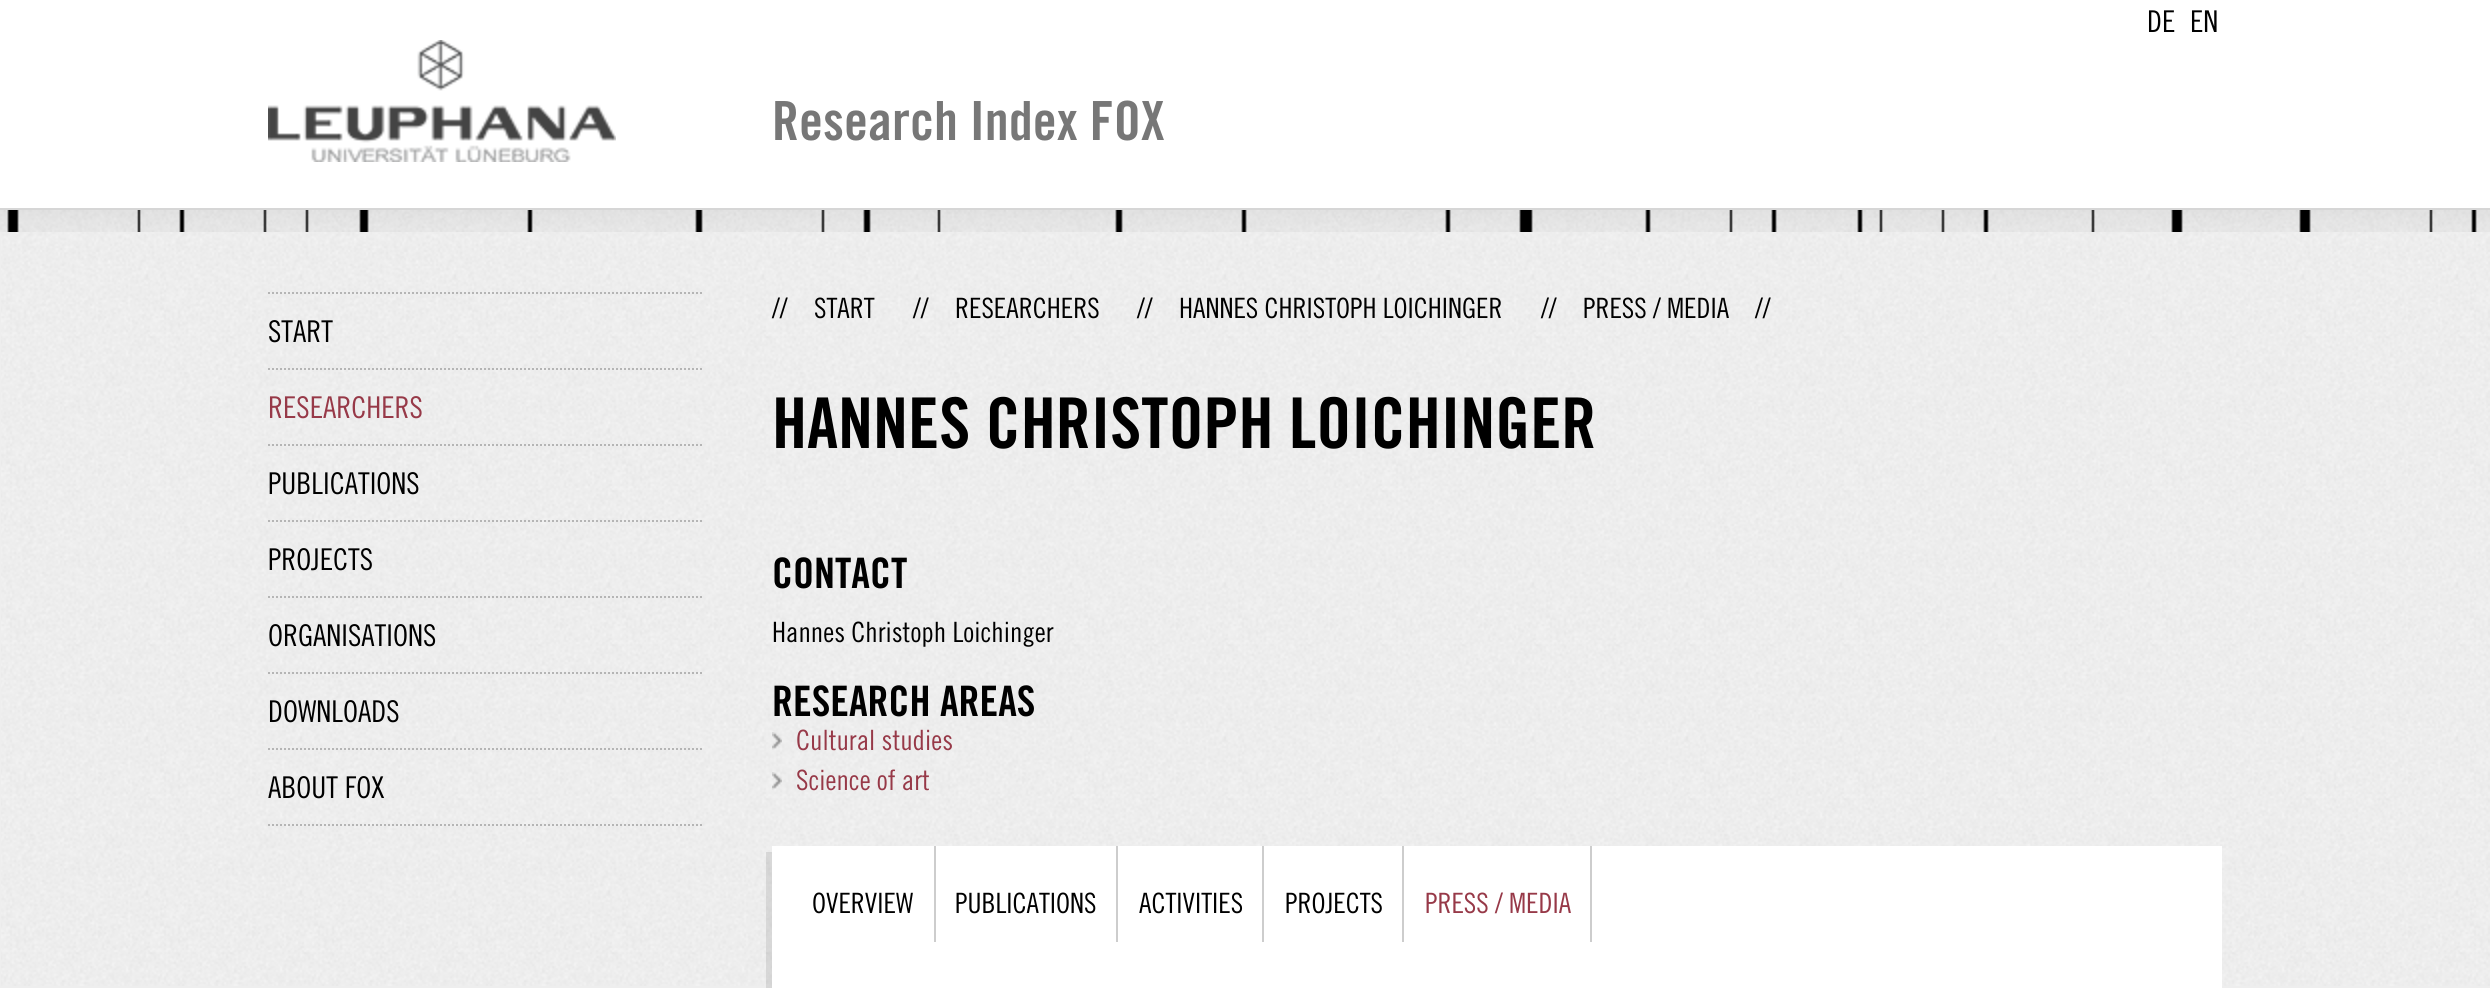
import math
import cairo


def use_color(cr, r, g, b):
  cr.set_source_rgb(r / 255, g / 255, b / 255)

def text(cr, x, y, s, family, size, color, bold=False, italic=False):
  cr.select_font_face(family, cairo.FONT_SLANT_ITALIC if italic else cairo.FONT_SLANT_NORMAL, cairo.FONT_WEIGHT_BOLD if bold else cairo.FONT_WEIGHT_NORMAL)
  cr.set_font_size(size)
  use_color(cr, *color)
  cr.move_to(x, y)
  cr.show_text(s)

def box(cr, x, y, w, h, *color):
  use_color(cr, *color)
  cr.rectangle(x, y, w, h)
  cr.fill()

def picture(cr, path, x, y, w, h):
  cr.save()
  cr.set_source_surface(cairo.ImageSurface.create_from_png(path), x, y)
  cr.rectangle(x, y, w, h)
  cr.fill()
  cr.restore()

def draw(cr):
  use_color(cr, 238, 238, 238)
  cr.paint()
  picture(cr, "img_01.png", 1, 232, 2489, 754)
  box(cr, 0, 0, 2490, 208, 255, 255, 255)
  box(cr, 0, 208, 2490, 2, 214, 214, 214)
  picture(cr, "img_02.png", 268, 40, 348, 122)
  picture(cr, "img_03.png", 0, 210, 2490, 22)
  cr.new_path()
  cr.move_to(268, 825)
  cr.line_to(702, 825)
  use_color(cr, 181, 181, 181)
  cr.set_dash([2, 2])
  cr.stroke()
  cr.new_path()
  cr.move_to(268, 293)
  cr.line_to(702, 293)
  cr.stroke()
  cr.new_path()
  cr.move_to(268, 369)
  cr.line_to(702, 369)
  cr.stroke()
  cr.new_path()
  cr.move_to(268, 445)
  cr.line_to(702, 445)
  cr.stroke()
  cr.new_path()
  cr.move_to(268, 521)
  cr.line_to(702, 521)
  cr.stroke()
  cr.new_path()
  cr.move_to(268, 597)
  cr.line_to(702, 597)
  cr.stroke()
  cr.new_path()
  cr.move_to(268, 673)
  cr.line_to(702, 673)
  cr.stroke()
  cr.new_path()
  cr.move_to(268, 749)
  cr.line_to(702, 749)
  cr.stroke()
  picture(cr, "img_04.png", 772, 732, 10, 18)
  picture(cr, "img_05.png", 772, 772, 10, 18)
  cr.set_source_rgba(0, 0, 0, 0.1)
  cr.new_path()
  cr.move_to(766, 852)
  cr.line_to(766, 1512)
  cr.line_to(2216, 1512)
  cr.line_to(2216, 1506)
  cr.line_to(772, 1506)
  cr.line_to(772, 852)
  cr.close_path()
  cr.fill()
  box(cr, 772, 846, 1450, 142, 255, 255, 255)
  box(cr, 934, 846, 2, 96, 205, 205, 205)
  box(cr, 1116, 846, 2, 96, 205, 205, 205)
  box(cr, 1262, 846, 2, 96, 205, 205, 205)
  box(cr, 1402, 846, 2, 96, 205, 205, 205)
  box(cr, 1590, 846, 2, 96, 205, 205, 205)
  text(cr, 2147, 32, "DE", "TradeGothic", 30, (0, 0, 0))
  text(cr, 2190, 32, "EN", "TradeGothic", 30, (0, 0, 0))
  text(cr, 772, 140, "Research Index FOX", "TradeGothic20", 54, (119, 119, 119), bold=True)
  text(cr, 268, 342, "START", "TradeGothic", 30, (0, 0, 0))
  text(cr, 268, 418, "RESEARCHERS", "TradeGothic", 30, (151, 57, 72))
  text(cr, 268, 494, "PUBLICATIONS", "TradeGothic", 30, (0, 0, 0))
  text(cr, 268, 570, "PROJECTS", "TradeGothic", 30, (0, 0, 0))
  text(cr, 268, 646, "ORGANISATIONS", "TradeGothic", 30, (0, 0, 0))
  text(cr, 268, 722, "DOWNLOADS", "TradeGothic", 30, (0, 0, 0))
  text(cr, 268, 798, "ABOUT FOX", "TradeGothic", 30, (0, 0, 0))
  text(cr, 772, 318, "//", "TradeGothic", 28, (0, 0, 0))
  text(cr, 814, 318, "START", "TradeGothic", 28, (0, 0, 0))
  text(cr, 913, 318, "//", "TradeGothic", 28, (0, 0, 0))
  text(cr, 955, 318, "RESEARCHERS", "TradeGothic", 28, (0, 0, 0))
  text(cr, 1137, 318, "//", "TradeGothic", 28, (0, 0, 0))
  text(cr, 1179, 318, "HANNES CHRISTOPH LOICHINGER", "TradeGothic", 28, (0, 0, 0))
  text(cr, 1541, 318, "//", "TradeGothic", 28, (0, 0, 0))
  text(cr, 1583, 318, "PRESS / MEDIA", "TradeGothic", 28, (0, 0, 0))
  text(cr, 1755, 318, "//", "TradeGothic", 28, (0, 0, 0))
  text(cr, 772, 448, "HANNES CHRISTOPH LOICHINGER", "TradeGothic20", 70, (0, 0, 0), bold=True)
  text(cr, 772, 588, "CONTACT", "TradeGothic20", 42, (0, 0, 0), bold=True)
  text(cr, 772, 642, "Hannes Christoph Loichinger", "TradeGothic", 28, (0, 0, 0))
  text(cr, 772, 716, "RESEARCH AREAS", "TradeGothic20", 42, (0, 0, 0), bold=True)
  text(cr, 796, 750, "Cultural studies", "TradeGothic", 28, (151, 57, 72))
  text(cr, 796, 790, "Science of art", "TradeGothic", 28, (151, 57, 72))
  text(cr, 812, 913, "OVERVIEW", "TradeGothic", 28, (0, 0, 0))
  text(cr, 955, 913, "PUBLICATIONS", "TradeGothic", 28, (0, 0, 0))
  text(cr, 1139, 913, "ACTIVITIES", "TradeGothic", 28, (0, 0, 0))
  text(cr, 1285, 913, "PROJECTS", "TradeGothic", 28, (0, 0, 0))
  text(cr, 1425, 913, "PRESS / MEDIA", "TradeGothic", 28, (151, 57, 72))


surface = cairo.ImageSurface(cairo.FORMAT_RGB24, 2490, 988)
cr = cairo.Context(surface)
options = cairo.FontOptions()
options.set_hint_metrics(cairo.HINT_METRICS_OFF)
options.set_hint_style(cairo.HINT_STYLE_NONE)
cr.set_font_options(options)
cr.set_miter_limit(4)
draw(cr)
surface.write_to_png("out.png")
